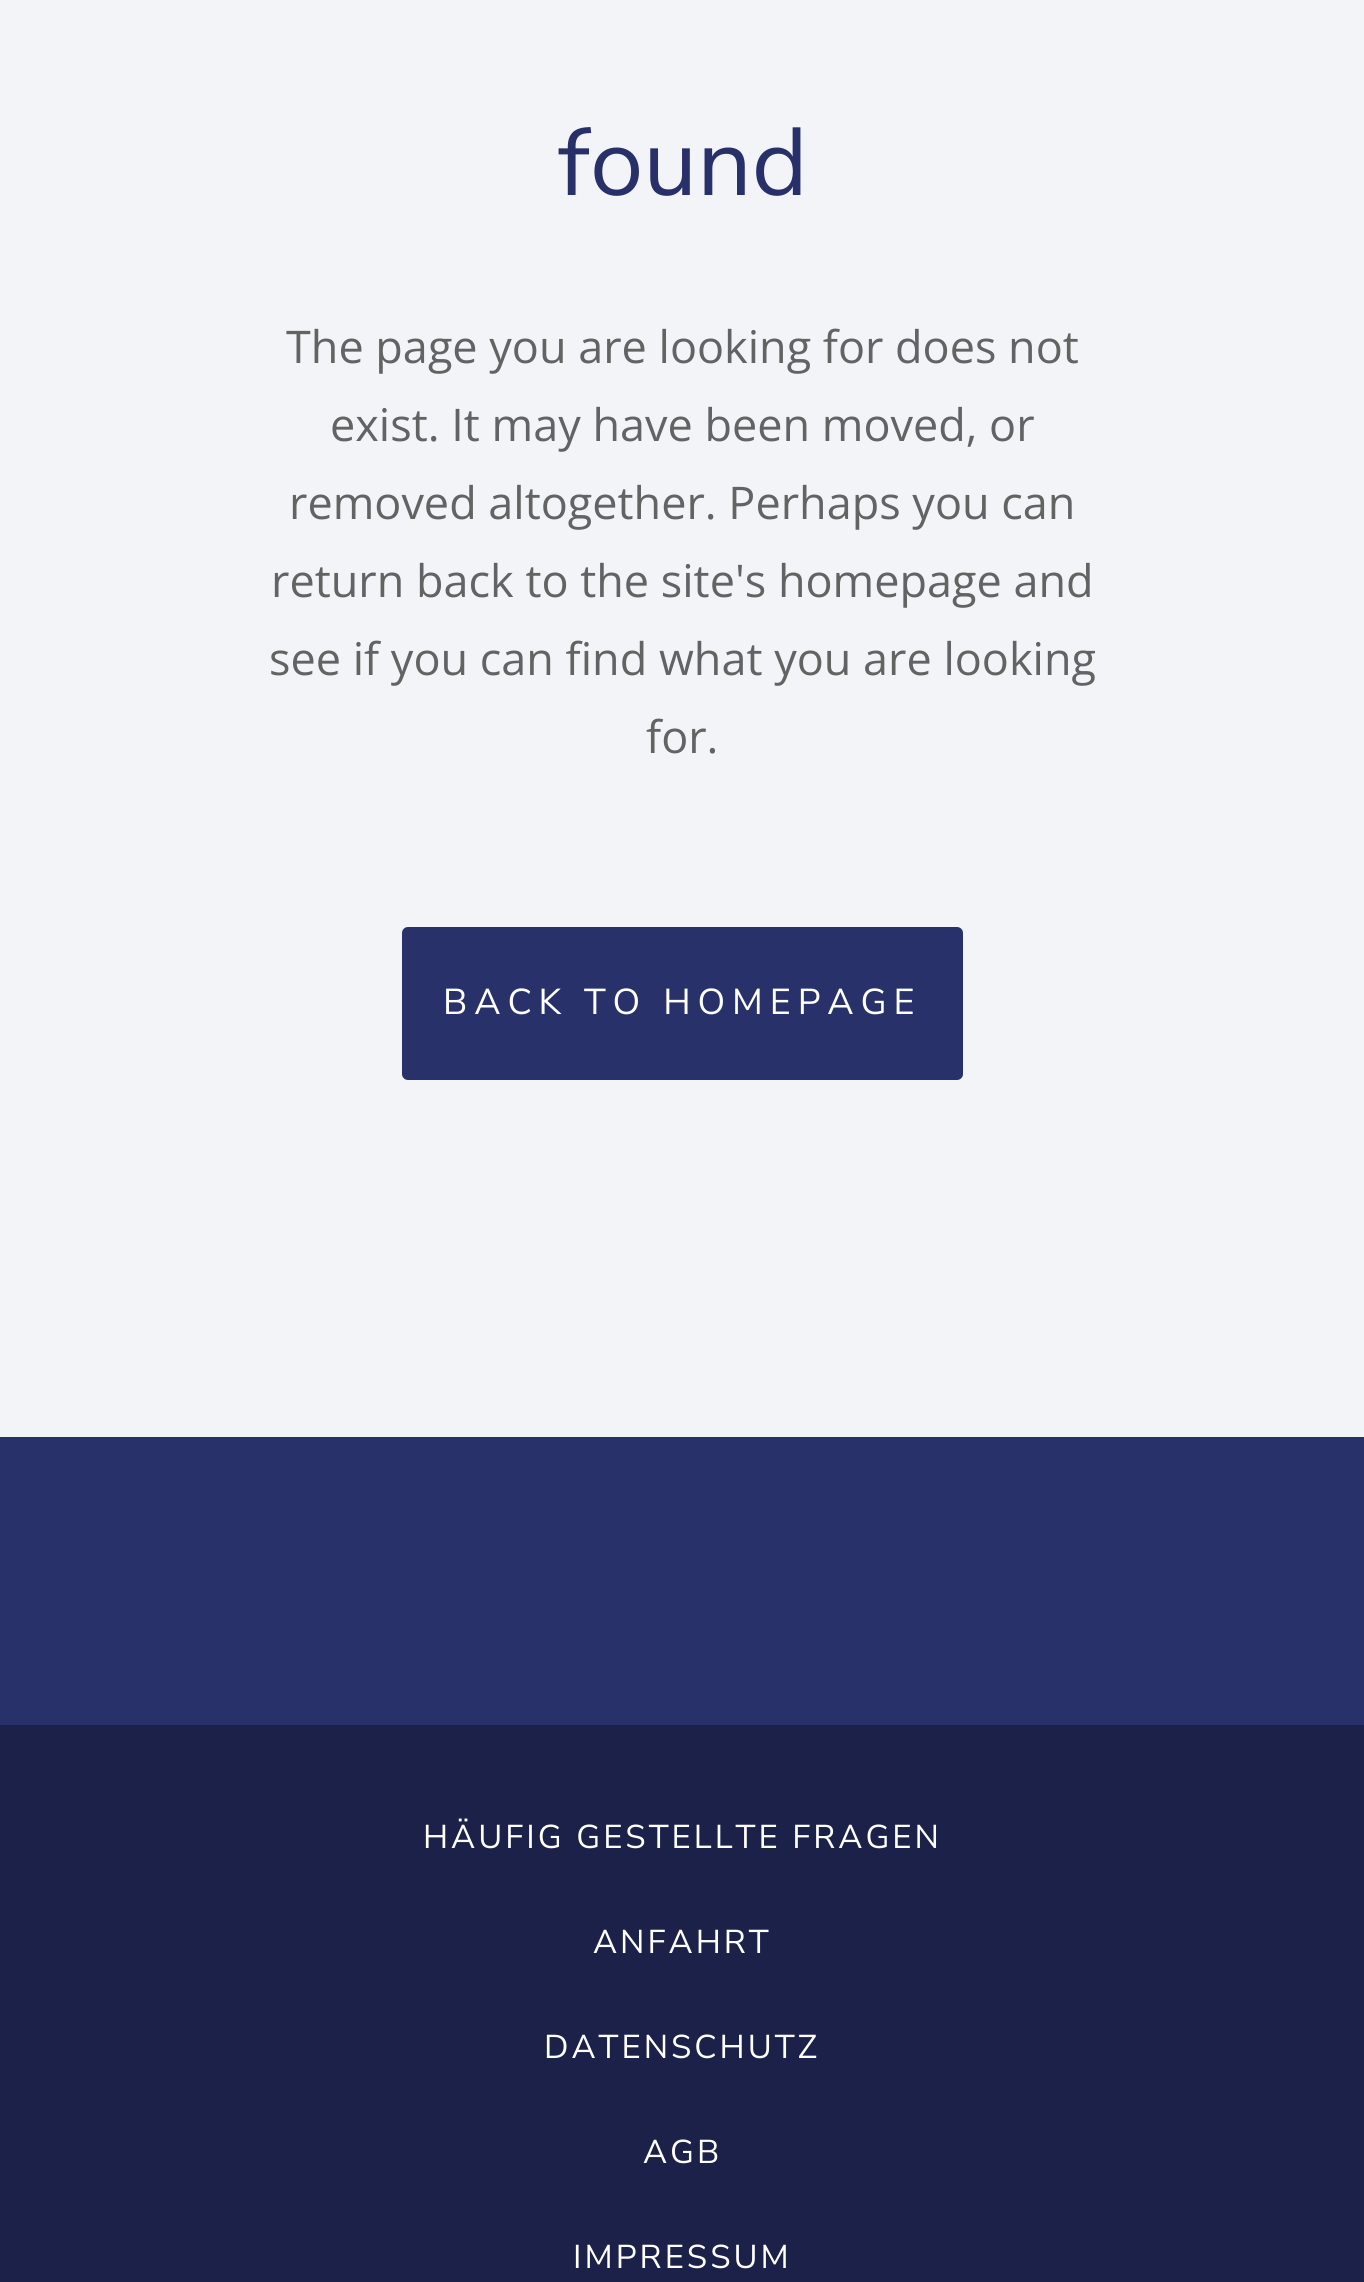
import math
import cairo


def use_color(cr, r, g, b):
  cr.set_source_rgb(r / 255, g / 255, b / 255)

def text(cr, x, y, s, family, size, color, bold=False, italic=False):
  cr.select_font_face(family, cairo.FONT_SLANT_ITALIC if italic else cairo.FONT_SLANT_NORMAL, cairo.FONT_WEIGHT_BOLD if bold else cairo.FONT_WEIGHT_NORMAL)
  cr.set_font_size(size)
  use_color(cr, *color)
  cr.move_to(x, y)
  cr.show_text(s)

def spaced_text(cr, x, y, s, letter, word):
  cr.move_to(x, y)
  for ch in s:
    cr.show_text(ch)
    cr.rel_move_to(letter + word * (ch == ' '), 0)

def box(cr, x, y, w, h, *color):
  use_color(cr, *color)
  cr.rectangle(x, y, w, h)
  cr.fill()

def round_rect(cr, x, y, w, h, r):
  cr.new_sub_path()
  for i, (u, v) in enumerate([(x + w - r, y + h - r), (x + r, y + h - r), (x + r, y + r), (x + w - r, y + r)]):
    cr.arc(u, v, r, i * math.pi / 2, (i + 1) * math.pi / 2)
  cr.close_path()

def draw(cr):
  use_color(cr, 243, 244, 247)
  cr.paint()
  use_color(cr, 40, 49, 106)
  round_rect(cr, 402, 927, 561, 153, 6)
  cr.fill()
  box(cr, 0, 1437, 1364, 288, 40, 49, 106)
  box(cr, 0, 1725, 1364, 557, 27, 33, 73)
  text(cr, 558, 195, "found", "Nunito Sans", 96, (39, 48, 105))
  text(cr, 286, 363, "The page you are looking for does not", "Open Sans", 45, (99, 99, 99))
  text(cr, 330, 441, "exist. It may have been moved, or", "Open Sans", 45, (99, 99, 99))
  text(cr, 289, 519, "removed altogether. Perhaps you can", "Open Sans", 45, (99, 99, 99))
  text(cr, 271, 597, "return back to the site's homepage and", "Open Sans", 45, (99, 99, 99))
  text(cr, 269, 675, "see if you can find what you are looking", "Open Sans", 45, (99, 99, 99))
  text(cr, 646, 753, "for.", "Open Sans", 45, (99, 99, 99))
  cr.select_font_face("Nunito Sans")
  cr.set_font_size(36)
  use_color(cr, 255, 255, 255)
  spaced_text(cr, 443, 1014, "BACK TO HOMEPAGE", 6.9, 0)
  cr.set_font_size(33)
  spaced_text(cr, 423, 1848, "HÄUFIG GESTELLTE FRAGEN", 3, 0)
  spaced_text(cr, 593, 1953, "ANFAHRT", 3, 0)
  spaced_text(cr, 544, 2058, "DATENSCHUTZ", 3, 0)
  spaced_text(cr, 643, 2163, "AGB", 3, 0)
  spaced_text(cr, 573, 2268, "IMPRESSUM", 3, 0)


surface = cairo.ImageSurface(cairo.FORMAT_RGB24, 1364, 2282)
cr = cairo.Context(surface)
options = cairo.FontOptions()
options.set_hint_metrics(cairo.HINT_METRICS_OFF)
options.set_hint_style(cairo.HINT_STYLE_NONE)
cr.set_font_options(options)
cr.set_miter_limit(4)
draw(cr)
surface.write_to_png("out.png")
